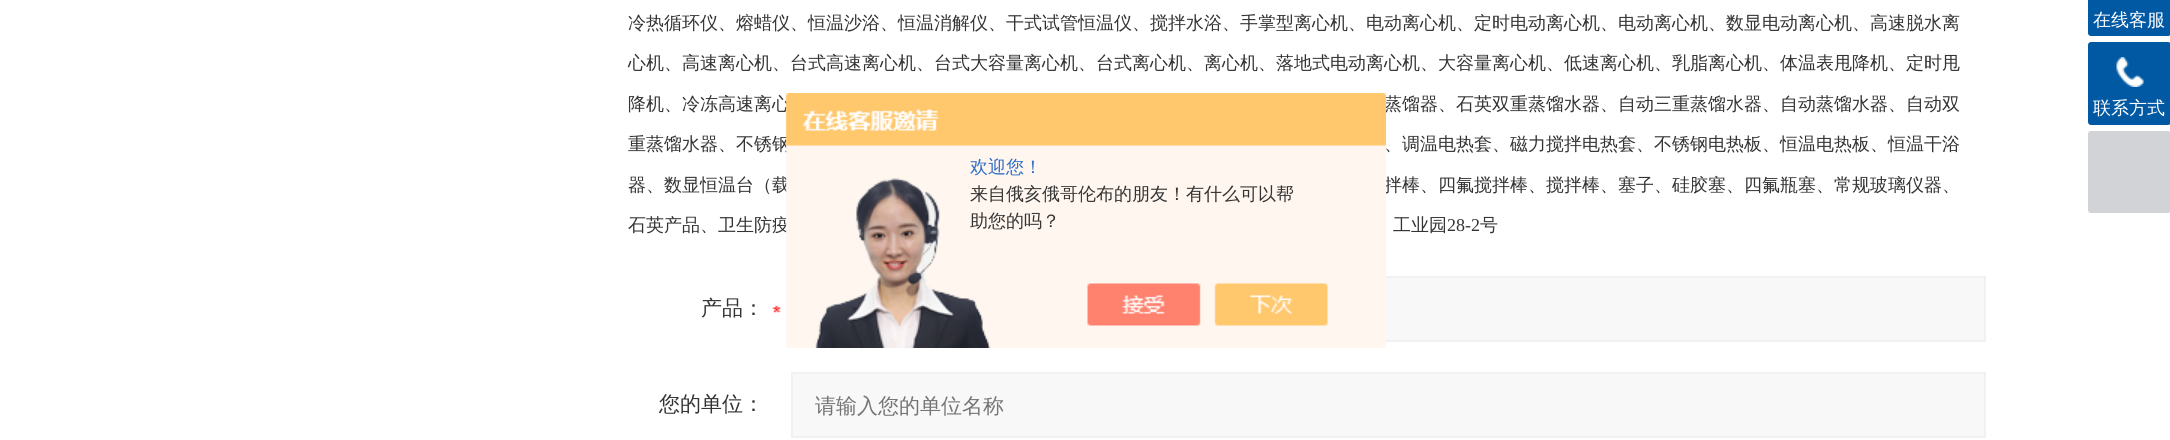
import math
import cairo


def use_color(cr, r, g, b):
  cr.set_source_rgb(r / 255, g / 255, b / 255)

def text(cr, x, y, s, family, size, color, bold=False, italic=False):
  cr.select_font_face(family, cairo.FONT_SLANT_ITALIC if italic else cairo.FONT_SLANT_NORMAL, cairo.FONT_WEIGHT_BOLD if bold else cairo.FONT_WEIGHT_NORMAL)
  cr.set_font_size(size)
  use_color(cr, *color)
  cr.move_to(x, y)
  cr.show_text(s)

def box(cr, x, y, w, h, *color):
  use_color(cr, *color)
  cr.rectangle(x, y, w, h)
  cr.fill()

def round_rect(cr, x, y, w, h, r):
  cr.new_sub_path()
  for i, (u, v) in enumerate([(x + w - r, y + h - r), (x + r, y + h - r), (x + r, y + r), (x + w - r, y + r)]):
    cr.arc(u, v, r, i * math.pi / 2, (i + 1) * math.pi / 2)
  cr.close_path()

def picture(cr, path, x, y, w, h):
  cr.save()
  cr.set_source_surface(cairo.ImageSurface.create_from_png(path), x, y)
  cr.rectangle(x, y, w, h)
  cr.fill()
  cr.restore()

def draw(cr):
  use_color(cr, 255, 255, 255)
  cr.paint()
  picture(cr, "img_01.png", 772, 305, 9, 8)
  box(cr, 1386, 278, 598, 62, 248, 248, 248)
  cr.rectangle(792, 277, 1193, 64)
  use_color(cr, 241, 241, 241)
  cr.stroke()
  use_color(cr, 248, 248, 248)
  cr.rectangle(792, 373, 1193, 64)
  cr.fill_preserve()
  use_color(cr, 241, 241, 241)
  cr.stroke()
  use_color(cr, 1, 89, 163)
  round_rect(cr, 2088, -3, 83, 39, 3)
  cr.fill()
  round_rect(cr, 2088, 42, 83, 83, 3)
  cr.fill()
  picture(cr, "img_02.png", 2116, 57, 28, 30)
  use_color(cr, 210, 211, 214)
  round_rect(cr, 2088, 131, 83, 82, 3)
  cr.fill()
  text(cr, 628, 29, "冷热循环仪、熔蜡仪、恒温沙浴、恒温消解仪、干式试管恒温仪、搅拌水浴、手掌型离心机、电动离心机、定时电动离心机、电动离心机、数显电动离心机、高速脱水离", "WenQuanYi Zen Hei Medium", 18, (51, 51, 51))
  text(cr, 628, 69, "心机、高速离心机、台式高速离心机、台式大容量离心机、台式离心机、离心机、落地式电动离心机、大容量离心机、低速离心机、乳脂离心机、体温表甩降机、定时甩", "WenQuanYi Zen Hei Medium", 18, (51, 51, 51))
  text(cr, 628, 110, "降机、冷冻高速离心", "WenQuanYi Zen Hei Medium", 18, (51, 51, 51))
  text(cr, 1384, 110, "蒸馏器、石英双重蒸馏水器、自动三重蒸馏水器、自动蒸馏水器、自动双", "WenQuanYi Zen Hei Medium", 18, (51, 51, 51))
  text(cr, 628, 150, "重蒸馏水器、不锈钢", "WenQuanYi Zen Hei Medium", 18, (51, 51, 51))
  text(cr, 1384, 150, "、调温电热套、磁力搅拌电热套、不锈钢电热板、恒温电热板、恒温干浴", "WenQuanYi Zen Hei Medium", 18, (51, 51, 51))
  text(cr, 628, 191, "器、数显恒温台（载", "WenQuanYi Zen Hei Medium", 18, (51, 51, 51))
  text(cr, 1384, 191, "拌棒、四氟搅拌棒、搅拌棒、塞子、硅胶塞、四氟瓶塞、常规玻璃仪器、", "WenQuanYi Zen Hei Medium", 18, (51, 51, 51))
  text(cr, 628, 231, "石英产品、卫生防疫", "WenQuanYi Zen Hei Medium", 18, (51, 51, 51))
  text(cr, 1393, 231, "工业园", "WenQuanYi Zen Hei Medium", 18, (51, 51, 51))
  text(cr, 1447, 231, "28-2", "Liberation Serif", 18, (51, 51, 51))
  text(cr, 1480, 231, "号", "WenQuanYi Zen Hei Medium", 18, (51, 51, 51))
  text(cr, 701, 315, "产品：", "WenQuanYi Zen Hei Medium", 21, (51, 51, 51))
  text(cr, 659, 411, "您的单位：", "WenQuanYi Zen Hei Medium", 21, (51, 51, 51))
  text(cr, 815, 413, "请输入您的单位名称", "WenQuanYi Zen Hei Medium", 21, (117, 117, 117))
  text(cr, 2093, 26, "在线客服", "WenQuanYi Zen Hei Medium", 18, (255, 255, 255))
  text(cr, 2093, 114, "联系方式", "WenQuanYi Zen Hei Medium", 18, (255, 255, 255))
  picture(cr, "img_03.png", 785, 93, 601, 255)
  text(cr, 970, 173, "欢迎您！", "WenQuanYi Zen Hei Medium", 18, (46, 110, 198))
  text(cr, 970, 200, "来自俄亥俄哥伦布的朋友！有什么可以帮", "WenQuanYi Zen Hei Medium", 18, (51, 51, 51))
  text(cr, 970, 227, "助您的吗？", "WenQuanYi Zen Hei Medium", 18, (51, 51, 51))


surface = cairo.ImageSurface(cairo.FORMAT_RGB24, 2170, 440)
cr = cairo.Context(surface)
options = cairo.FontOptions()
options.set_hint_metrics(cairo.HINT_METRICS_OFF)
options.set_hint_style(cairo.HINT_STYLE_NONE)
cr.set_font_options(options)
cr.set_miter_limit(4)
draw(cr)
surface.write_to_png("out.png")
